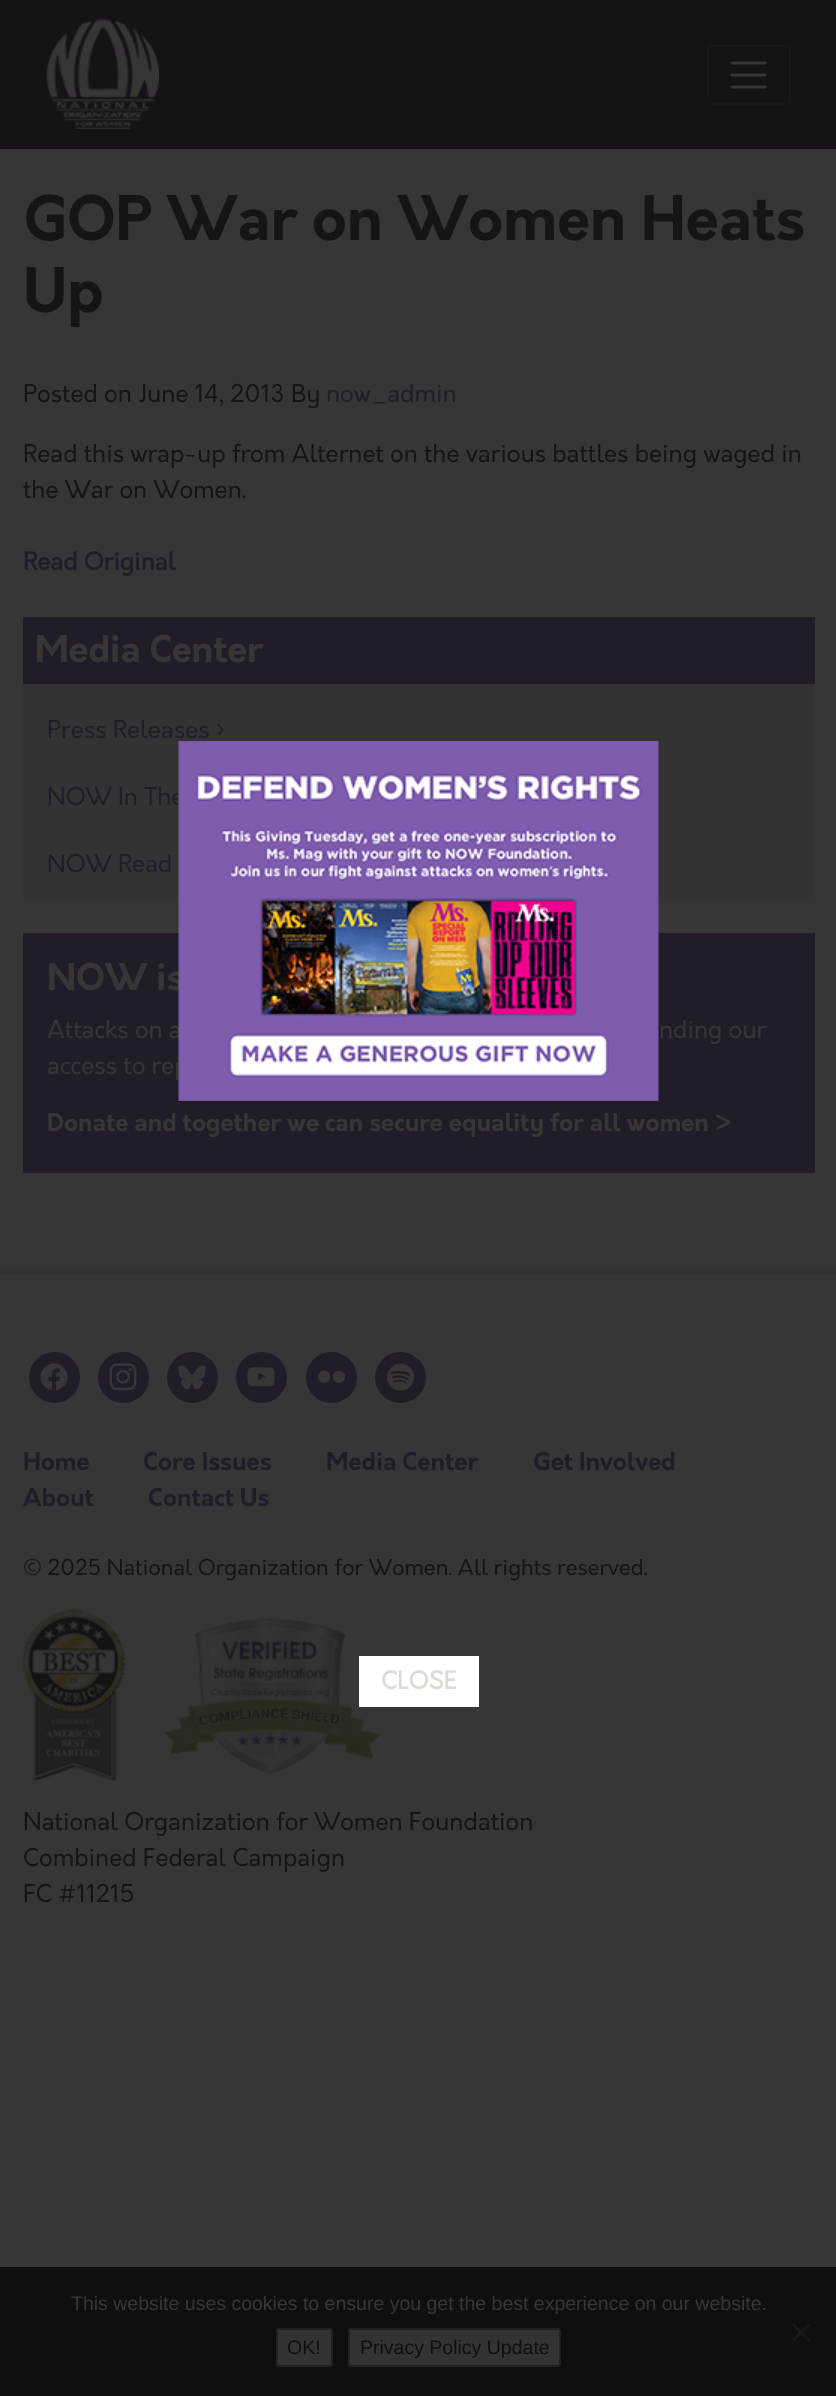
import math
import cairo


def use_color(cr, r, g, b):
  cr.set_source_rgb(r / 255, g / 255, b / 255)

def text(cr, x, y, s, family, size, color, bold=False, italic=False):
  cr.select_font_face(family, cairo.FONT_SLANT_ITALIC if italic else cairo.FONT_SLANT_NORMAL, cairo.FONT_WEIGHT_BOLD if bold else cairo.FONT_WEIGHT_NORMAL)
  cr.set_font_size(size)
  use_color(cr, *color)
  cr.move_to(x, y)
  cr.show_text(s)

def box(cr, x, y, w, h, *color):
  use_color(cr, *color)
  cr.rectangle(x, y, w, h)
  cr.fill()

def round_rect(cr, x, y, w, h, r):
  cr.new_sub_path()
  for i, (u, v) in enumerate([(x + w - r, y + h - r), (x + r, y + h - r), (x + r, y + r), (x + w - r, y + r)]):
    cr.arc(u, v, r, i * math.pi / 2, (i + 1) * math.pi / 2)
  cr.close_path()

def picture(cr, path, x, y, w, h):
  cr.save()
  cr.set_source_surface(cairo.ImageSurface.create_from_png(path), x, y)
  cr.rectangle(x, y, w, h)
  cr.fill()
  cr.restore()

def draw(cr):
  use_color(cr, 54, 54, 54)
  cr.paint()
  box(cr, 0, 0, 836, 149, 23, 18, 24)
  picture(cr, "img_01.png", 46, 19, 113, 110)
  round_rect(cr, 708, 46, 82, 58, 3)
  use_color(cr, 26, 22, 27)
  cr.stroke()
  cr.new_path()
  cr.move_to(732, 63)
  cr.line_to(765, 63)
  cr.move_to(732, 75)
  cr.line_to(765, 75)
  cr.move_to(732, 87)
  cr.line_to(765, 87)
  use_color(cr, 54, 54, 54)
  cr.set_line_width(3)
  cr.set_line_cap(cairo.LINE_CAP_ROUND)
  cr.stroke()
  box(cr, 23, 684, 792, 213, 51, 51, 51)
  box(cr, 23, 617, 792, 67, 34, 28, 41)
  box(cr, 23, 933, 792, 240, 34, 28, 41)
  box(cr, 0, 1269, 836, 5, 51, 51, 51)
  use_color(cr, 34, 28, 41)
  cr.arc(54.5, 1377.5, 25.5, 0, 2 * math.pi)
  cr.fill()
  picture(cr, "img_02.png", 40, 1363, 28, 28)
  cr.arc(123.5, 1377.5, 25.5, 0, 2 * math.pi)
  cr.fill()
  picture(cr, "img_03.png", 109, 1363, 28, 28)
  cr.arc(192.5, 1377.5, 25.5, 0, 2 * math.pi)
  cr.fill()
  picture(cr, "img_04.png", 178, 1365, 28, 25)
  cr.arc(261.5, 1377.5, 25.5, 0, 2 * math.pi)
  cr.fill()
  picture(cr, "img_05.png", 247, 1367, 28, 20)
  cr.arc(331.5, 1377.5, 25.5, 0, 2 * math.pi)
  cr.fill()
  picture(cr, "img_06.png", 318, 1370, 28, 13)
  cr.arc(400.5, 1377.5, 25.5, 0, 2 * math.pi)
  cr.fill()
  picture(cr, "img_07.png", 387, 1363, 27, 28)
  picture(cr, "img_08.png", 22, 1609, 103, 172)
  picture(cr, "img_09.png", 164, 1618, 217, 156)
  box(cr, 359, 1656, 120, 51, 255, 255, 255)
  box(cr, 0, 2267, 836, 129, 15, 15, 15)
  use_color(cr, 25, 25, 25)
  cr.new_path()
  cr.move_to(808, 2323.5)
  cr.line_to(810, 2325.5)
  cr.line_to(794, 2341.5)
  cr.line_to(792, 2339.5)
  cr.close_path()
  cr.fill()
  cr.new_path()
  cr.move_to(792, 2325.5)
  cr.line_to(794, 2323.5)
  cr.line_to(810, 2339.5)
  cr.line_to(808, 2341.5)
  cr.close_path()
  cr.fill()
  use_color(cr, 51, 51, 51)
  round_rect(cr, 277, 2329, 55, 37, 2)
  cr.fill_preserve()
  use_color(cr, 33, 33, 33)
  cr.set_line_width(2)
  cr.set_line_cap(cairo.LINE_CAP_BUTT)
  cr.stroke()
  use_color(cr, 51, 51, 51)
  round_rect(cr, 349, 2329, 211, 37, 2)
  cr.fill_preserve()
  use_color(cr, 33, 33, 33)
  cr.stroke()
  text(cr, 23, 240, "GOP War on Women Heats", "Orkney", 60, (20, 21, 21), bold=True)
  text(cr, 23, 312, "Up", "Orkney", 60, (20, 21, 21), bold=True)
  text(cr, 23, 402, "Posted on June 14, 2013 By", "Orkney", 24, (20, 21, 21))
  text(cr, 326, 402, "now_admin", "Orkney", 24, (34, 28, 41))
  text(cr, 23, 462, "Read this wrap-up from Alternet on the various battles being waged in", "Orkney", 24, (20, 21, 21))
  text(cr, 23, 498, "the War on Women.", "Orkney", 24, (20, 21, 21))
  text(cr, 23, 570, "Read Original", "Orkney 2", 24, (34, 28, 41), bold=True)
  text(cr, 35, 662, "Media Center", "Orkney", 36, (54, 54, 54), bold=True)
  text(cr, 47, 738, "Press Releases", "Orkney", 24, (34, 28, 41))
  text(cr, 215, 738, "›", "Orkney", 29, (34, 28, 41))
  text(cr, 47, 805, "NOW In The", "Orkney", 24, (34, 28, 41))
  text(cr, 47, 872, "NOW Read", "Orkney", 24, (34, 28, 41))
  text(cr, 47, 990, "NOW is", "Orkney", 36, (54, 54, 54), bold=True)
  text(cr, 47, 1038, "Attacks on a", "Orkney", 24, (54, 54, 54))
  text(cr, 659, 1038, "nding our", "Orkney", 24, (54, 54, 54))
  text(cr, 47, 1074, "access to rep", "Orkney", 24, (54, 54, 54))
  text(cr, 47, 1131, "Donate and together we can secure equality for all women >", "Orkney", 24, (54, 54, 54), bold=True)
  text(cr, 23, 1470, "Home", "Orkney", 24, (34, 28, 41), bold=True)
  text(cr, 143, 1470, "Core Issues", "Orkney", 24, (34, 28, 41), bold=True)
  text(cr, 326, 1470, "Media Center", "Orkney", 24, (34, 28, 41), bold=True)
  text(cr, 533, 1470, "Get Involved", "Orkney", 24, (34, 28, 41), bold=True)
  text(cr, 23, 1506, "About", "Orkney", 24, (34, 28, 41), bold=True)
  text(cr, 148, 1506, "Contact Us", "Orkney", 24, (34, 28, 41), bold=True)
  text(cr, 23, 1575, "© 2025 National Organization for Women. All rights reserved.", "Orkney", 21.6, (20, 21, 21))
  text(cr, 23, 1830, "National Organization for Women Foundation", "Orkney", 24, (20, 21, 21))
  text(cr, 23, 1866, "Combined Federal Campaign", "Orkney", 24, (20, 21, 21))
  text(cr, 23, 1902, "FC #11215", "Orkney", 24, (20, 21, 21))
  picture(cr, "img_10.png", 178, 741, 481, 360)
  text(cr, 381, 1689, "CLOSE", "Orkney 2", 24, (222, 218, 214), bold=True)
  text(cr, 71, 2310, "This website uses cookies to ensure you get the best experience on our website.", "Liberation Sans", 19.5, (54, 54, 54))
  text(cr, 287, 2354, "OK!", "Liberation Sans", 19.5, (15, 15, 15))
  text(cr, 360, 2354, "Privacy Policy Update", "Liberation Sans", 19.5, (15, 15, 15))


surface = cairo.ImageSurface(cairo.FORMAT_RGB24, 836, 2396)
cr = cairo.Context(surface)
options = cairo.FontOptions()
options.set_hint_metrics(cairo.HINT_METRICS_OFF)
options.set_hint_style(cairo.HINT_STYLE_NONE)
cr.set_font_options(options)
cr.set_miter_limit(4)
draw(cr)
surface.write_to_png("out.png")
